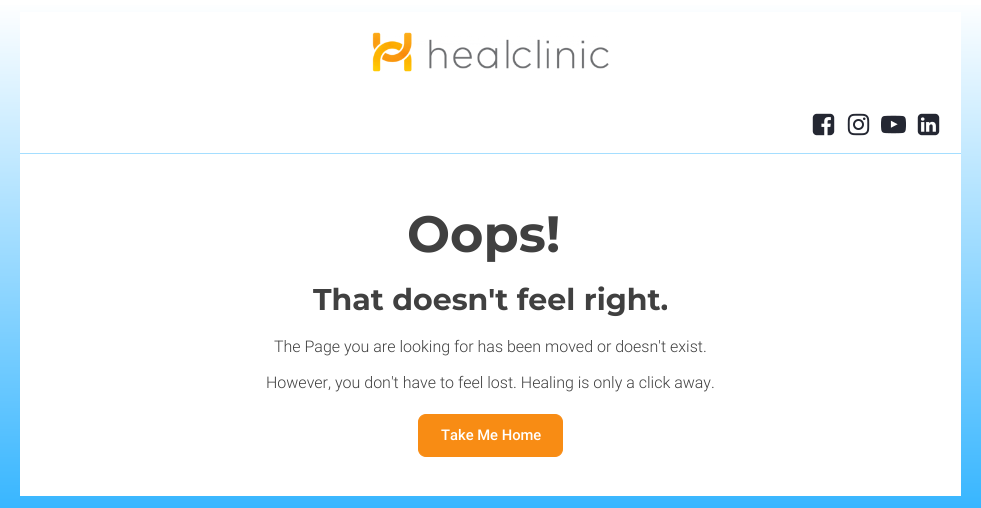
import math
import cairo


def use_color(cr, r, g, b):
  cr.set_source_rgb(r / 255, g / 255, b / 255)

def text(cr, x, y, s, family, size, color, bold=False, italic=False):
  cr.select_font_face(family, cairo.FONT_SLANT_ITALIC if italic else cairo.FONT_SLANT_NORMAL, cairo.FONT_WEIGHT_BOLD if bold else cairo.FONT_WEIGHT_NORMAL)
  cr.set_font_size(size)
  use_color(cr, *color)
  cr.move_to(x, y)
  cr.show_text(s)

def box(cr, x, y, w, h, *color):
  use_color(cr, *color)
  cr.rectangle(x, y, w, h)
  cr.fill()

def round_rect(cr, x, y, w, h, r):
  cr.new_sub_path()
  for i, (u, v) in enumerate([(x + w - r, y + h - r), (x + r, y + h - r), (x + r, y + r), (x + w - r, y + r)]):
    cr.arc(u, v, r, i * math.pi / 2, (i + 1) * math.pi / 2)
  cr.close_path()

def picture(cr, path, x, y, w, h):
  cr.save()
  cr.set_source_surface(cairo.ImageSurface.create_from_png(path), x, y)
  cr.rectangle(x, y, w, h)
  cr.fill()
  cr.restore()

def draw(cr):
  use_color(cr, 255, 255, 255)
  cr.paint()
  gradient = cairo.LinearGradient(490, 0, 491, 508)
  gradient.add_color_stop_rgba(0, 1, 1, 1, 1)
  gradient.add_color_stop_rgba(1, 0.22, 0.714, 1, 1)
  cr.set_source(gradient)
  cr.rectangle(0, 5, 981, 503)
  cr.fill()
  box(cr, 20, 12, 941, 484, 255, 255, 255)
  box(cr, 20, 153, 941, 1, 165, 222, 255)
  picture(cr, "img_01.png", 372, 32, 237, 40)
  picture(cr, "img_02.png", 812, 113, 23, 23)
  picture(cr, "img_03.png", 847, 113, 23, 23)
  picture(cr, "img_04.png", 881, 115, 25, 19)
  picture(cr, "img_05.png", 917, 113, 23, 23)
  use_color(cr, 248, 140, 20)
  round_rect(cr, 418.5, 414.5, 144, 42, 7.5)
  cr.fill_preserve()
  cr.set_line_width(1)
  cr.stroke()
  text(cr, 407, 252, "Oops!", "Montserrat", 51, (64, 64, 64), bold=True)
  text(cr, 313, 310, "That doesn't feel right.", "Montserrat", 30, (64, 64, 64), bold=True)
  text(cr, 274, 352, "The Page you are looking for has been moved or doesn't exist.", "Roboto Light", 16, (64, 64, 64))
  text(cr, 266, 388, "However, you don't have to feel lost. Healing is only a click away.", "Roboto Light", 16, (64, 64, 64))
  text(cr, 441, 440, "Take Me Home", "Roboto Medium", 14.75, (255, 255, 255))


surface = cairo.ImageSurface(cairo.FORMAT_RGB24, 981, 508)
cr = cairo.Context(surface)
options = cairo.FontOptions()
options.set_hint_metrics(cairo.HINT_METRICS_OFF)
options.set_hint_style(cairo.HINT_STYLE_NONE)
cr.set_font_options(options)
cr.set_miter_limit(4)
draw(cr)
surface.write_to_png("out.png")
